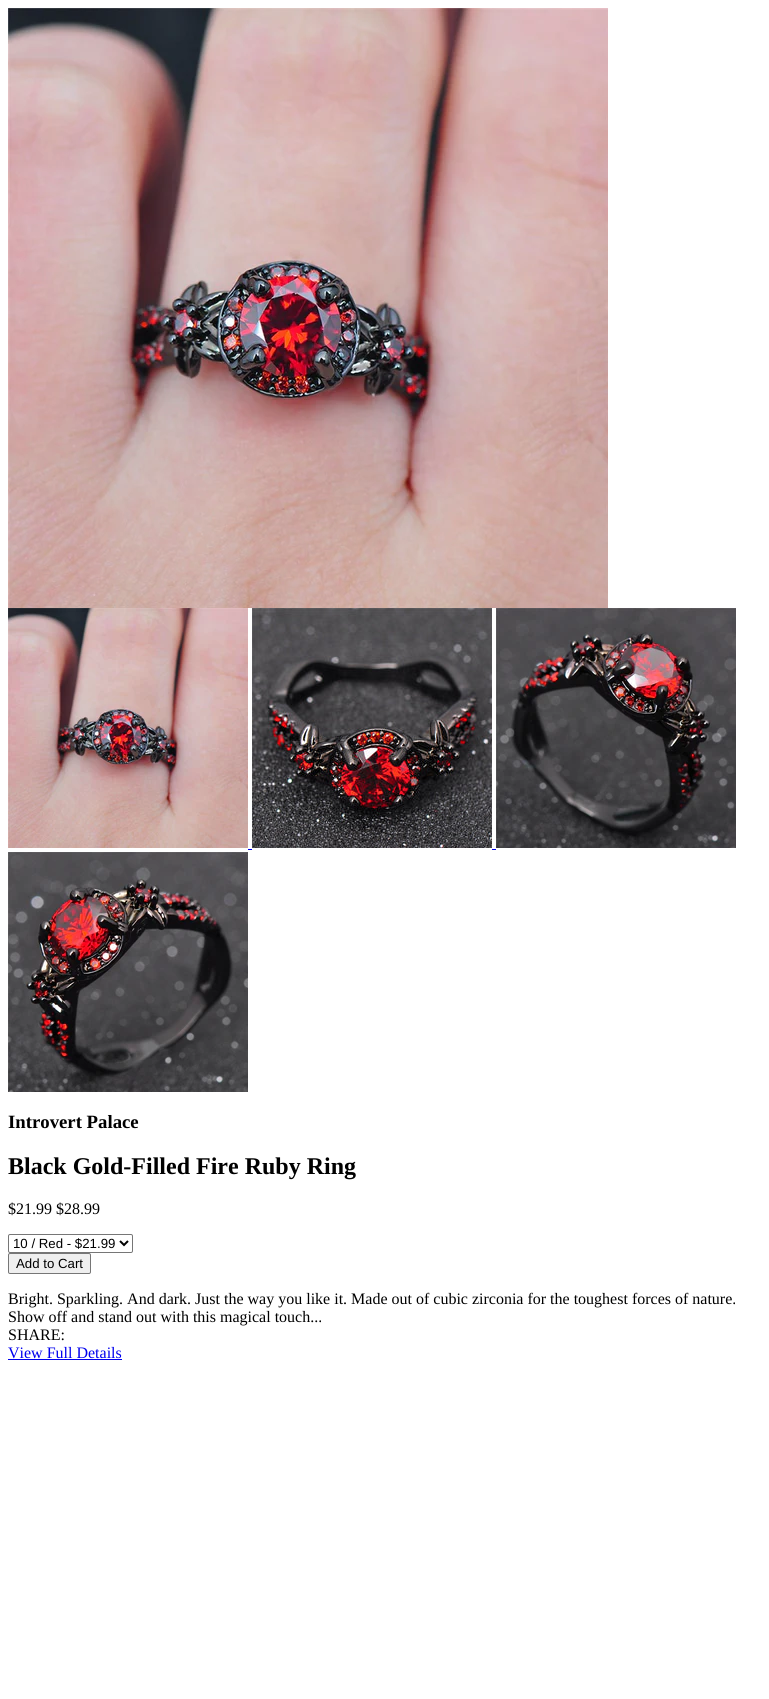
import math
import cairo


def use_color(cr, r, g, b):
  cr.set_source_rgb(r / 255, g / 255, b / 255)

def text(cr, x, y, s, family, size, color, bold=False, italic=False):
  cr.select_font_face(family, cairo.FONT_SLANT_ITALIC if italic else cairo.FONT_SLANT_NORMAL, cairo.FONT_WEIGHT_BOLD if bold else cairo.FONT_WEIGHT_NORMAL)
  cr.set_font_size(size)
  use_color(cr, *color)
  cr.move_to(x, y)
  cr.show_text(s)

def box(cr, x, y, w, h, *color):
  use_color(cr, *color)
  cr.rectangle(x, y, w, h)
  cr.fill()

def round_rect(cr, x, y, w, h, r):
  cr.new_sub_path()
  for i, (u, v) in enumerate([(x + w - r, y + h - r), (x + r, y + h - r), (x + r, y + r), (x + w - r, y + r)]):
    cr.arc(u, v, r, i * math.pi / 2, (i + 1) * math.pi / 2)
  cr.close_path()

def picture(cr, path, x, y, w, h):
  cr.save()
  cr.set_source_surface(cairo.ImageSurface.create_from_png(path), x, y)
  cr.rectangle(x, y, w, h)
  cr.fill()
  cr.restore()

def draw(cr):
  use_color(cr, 255, 255, 255)
  cr.paint()
  picture(cr, "img_01.png", 8, 8, 600, 600)
  picture(cr, "img_02.png", 8, 608, 240, 240)
  picture(cr, "img_03.png", 252, 608, 240, 240)
  picture(cr, "img_04.png", 496, 608, 240, 240)
  box(cr, 248, 849, 4, 1, 0, 0, 238)
  box(cr, 492, 849, 4, 1, 0, 0, 238)
  picture(cr, "img_05.png", 8, 852, 240, 240)
  round_rect(cr, 8.5, 1234.5, 124, 18, 1.5)
  use_color(cr, 118, 118, 118)
  cr.set_line_width(1)
  cr.stroke()
  cr.new_path()
  cr.move_to(120, 1241)
  cr.line_to(124, 1245)
  cr.line_to(128, 1241)
  use_color(cr, 0, 0, 0)
  cr.set_line_width(2)
  cr.stroke()
  use_color(cr, 239, 239, 239)
  round_rect(cr, 8.5, 1253.5, 82, 20, 1.5)
  cr.fill_preserve()
  use_color(cr, 118, 118, 118)
  cr.set_line_width(1)
  cr.stroke()
  box(cr, 8, 1359, 114, 1, 0, 0, 238)
  text(cr, 8, 1128, "Introvert Palace", "Liberation Serif", 18.75, (0, 0, 0), bold=True)
  text(cr, 8, 1174, "Black Gold-Filled Fire Ruby Ring", "Liberation Serif", 24, (0, 0, 0), bold=True)
  text(cr, 8, 1214, "$21.99 $28.99", "Liberation Serif", 16, (0, 0, 0))
  text(cr, 13, 1248, "10 / Red - $21.99", "Liberation Sans", 13.25, (0, 0, 0))
  text(cr, 16, 1268, "Add to Cart", "Liberation Sans", 13.25, (0, 0, 0))
  text(cr, 8, 1304, "Bright. Sparkling. And dark. Just the way you like it. Made out of cubic zirconia for the toughest forces of nature.", "Liberation Serif", 16, (0, 0, 0))
  text(cr, 8, 1322, "Show off and stand out with this magical touch...", "Liberation Serif", 16, (0, 0, 0))
  text(cr, 8, 1340, "SHARE:", "Liberation Serif", 16, (0, 0, 0))
  text(cr, 8, 1358, "View Full Details", "Liberation Serif", 16, (0, 0, 238))


surface = cairo.ImageSurface(cairo.FORMAT_RGB24, 769, 1699)
cr = cairo.Context(surface)
options = cairo.FontOptions()
options.set_hint_metrics(cairo.HINT_METRICS_OFF)
options.set_hint_style(cairo.HINT_STYLE_NONE)
cr.set_font_options(options)
cr.set_miter_limit(4)
draw(cr)
surface.write_to_png("out.png")
